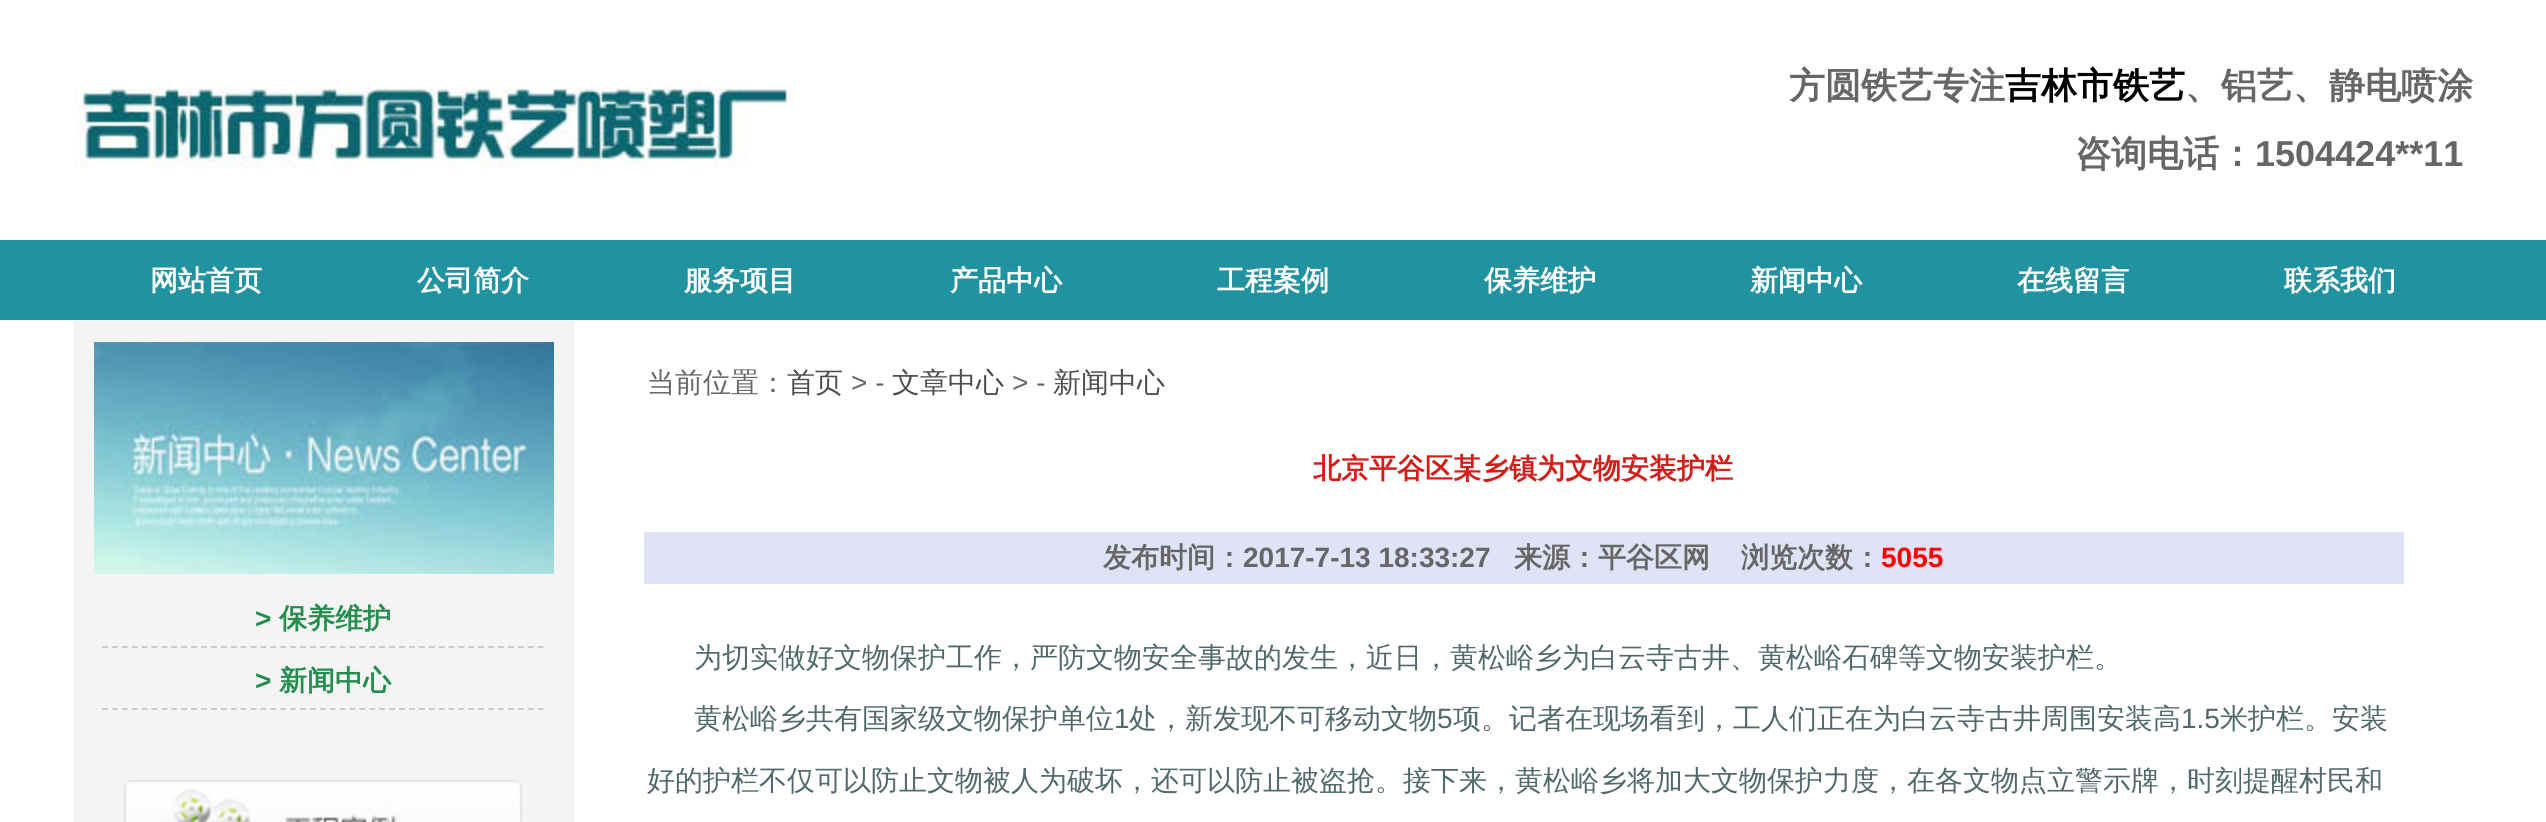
import math
import cairo


def use_color(cr, r, g, b):
  cr.set_source_rgb(r / 255, g / 255, b / 255)

def text(cr, x, y, s, family, size, color, bold=False, italic=False):
  cr.select_font_face(family, cairo.FONT_SLANT_ITALIC if italic else cairo.FONT_SLANT_NORMAL, cairo.FONT_WEIGHT_BOLD if bold else cairo.FONT_WEIGHT_NORMAL)
  cr.set_font_size(size)
  use_color(cr, *color)
  cr.move_to(x, y)
  cr.show_text(s)

def box(cr, x, y, w, h, *color):
  use_color(cr, *color)
  cr.rectangle(x, y, w, h)
  cr.fill()

def picture(cr, path, x, y, w, h):
  cr.save()
  cr.set_source_surface(cairo.ImageSurface.create_from_png(path), x, y)
  cr.rectangle(x, y, w, h)
  cr.fill()
  cr.restore()

def draw(cr):
  use_color(cr, 255, 255, 255)
  cr.paint()
  picture(cr, "img_01.png", 74, 87, 720, 82)
  box(cr, 0, 240, 2546, 80, 33, 146, 160)
  box(cr, 74, 320, 500, 502, 244, 244, 244)
  picture(cr, "img_02.png", 94, 342, 460, 232)
  cr.new_path()
  cr.move_to(102, 647)
  cr.line_to(544, 647)
  use_color(cr, 204, 204, 204)
  cr.set_dash([6, 3.9])
  cr.stroke()
  cr.new_path()
  cr.move_to(102, 709)
  cr.line_to(544, 709)
  cr.stroke()
  picture(cr, "img_03.png", 124, 780, 398, 42)
  box(cr, 644, 532, 1760, 52, 224, 227, 246)
  text(cr, 1789, 98, "方圆铁艺专注", "WenQuanYi Zen Hei", 36, (102, 102, 102), bold=True)
  text(cr, 2005, 98, "吉林市铁艺", "WenQuanYi Zen Hei", 36, (0, 0, 0), bold=True)
  text(cr, 2185, 98, "、铝艺、静电喷涂", "WenQuanYi Zen Hei", 36, (102, 102, 102), bold=True)
  text(cr, 2075, 166, "咨询电话：", "WenQuanYi Zen Hei", 36, (102, 102, 102), bold=True)
  text(cr, 2255, 166, "1504424**11", "Liberation Sans", 36, (102, 102, 102), bold=True)
  text(cr, 150, 290, "网站首页", "WenQuanYi Zen Hei", 28, (255, 255, 255), bold=True)
  text(cr, 417, 290, "公司简介", "WenQuanYi Zen Hei", 28, (255, 255, 255), bold=True)
  text(cr, 684, 290, "服务项目", "WenQuanYi Zen Hei", 28, (255, 255, 255), bold=True)
  text(cr, 950, 290, "产品中心", "WenQuanYi Zen Hei", 28, (255, 255, 255), bold=True)
  text(cr, 1217, 290, "工程案例", "WenQuanYi Zen Hei", 28, (255, 255, 255), bold=True)
  text(cr, 1484, 290, "保养维护", "WenQuanYi Zen Hei", 28, (255, 255, 255), bold=True)
  text(cr, 1750, 290, "新闻中心", "WenQuanYi Zen Hei", 28, (255, 255, 255), bold=True)
  text(cr, 2017, 290, "在线留言", "WenQuanYi Zen Hei", 28, (255, 255, 255), bold=True)
  text(cr, 2284, 290, "联系我们", "WenQuanYi Zen Hei", 28, (255, 255, 255), bold=True)
  text(cr, 255, 628, ">", "Liberation Sans", 28, (37, 141, 78), bold=True)
  text(cr, 279, 628, "保养维护", "WenQuanYi Zen Hei", 28, (37, 141, 78), bold=True)
  text(cr, 255, 690, ">", "Liberation Sans", 28, (37, 141, 78), bold=True)
  text(cr, 279, 690, "新闻中心", "WenQuanYi Zen Hei", 28, (37, 141, 78), bold=True)
  text(cr, 647, 392, "当前位置：", "WenQuanYi Zen Hei Medium", 28, (102, 102, 102))
  text(cr, 787, 392, "首页", "WenQuanYi Zen Hei Medium", 28, (77, 77, 77))
  text(cr, 851, 392, "> -", "Liberation Sans", 28, (102, 102, 102))
  text(cr, 892, 392, "文章中心", "WenQuanYi Zen Hei Medium", 28, (77, 77, 77))
  text(cr, 1012, 392, "> -", "Liberation Sans", 28, (102, 102, 102))
  text(cr, 1053, 392, "新闻中心", "WenQuanYi Zen Hei Medium", 28, (77, 77, 77))
  text(cr, 1313, 478, "北京平谷区某乡镇为文物安装护栏", "WenQuanYi Zen Hei", 28, (212, 29, 25), bold=True)
  text(cr, 1103, 567, "发布时间：", "WenQuanYi Zen Hei", 28, (102, 102, 102), bold=True)
  text(cr, 1243, 567, "2017-7-13 18:33:27", "Liberation Sans", 28, (102, 102, 102), bold=True)
  text(cr, 1514, 567, "来源：平谷区网", "WenQuanYi Zen Hei", 28, (102, 102, 102), bold=True)
  text(cr, 1741, 567, "浏览次数：", "WenQuanYi Zen Hei", 28, (102, 102, 102), bold=True)
  text(cr, 1881, 567, "5055", "Liberation Sans", 28, (255, 0, 0), bold=True)
  text(cr, 694, 667, "为切实做好文物保护工作，严防文物安全事故的发生，近日，黄松峪乡为白云寺古井、黄松峪石碑等文物安装护栏。", "WenQuanYi Zen Hei Medium", 28, (80, 105, 109))
  text(cr, 694, 728, "黄松峪乡共有国家级文物保护单位", "WenQuanYi Zen Hei Medium", 28, (80, 105, 109))
  text(cr, 1114, 728, "1", "Liberation Sans", 28, (80, 105, 109))
  text(cr, 1129, 728, "处，新发现不可移动文物", "WenQuanYi Zen Hei Medium", 28, (80, 105, 109))
  text(cr, 1437, 728, "5", "Liberation Sans", 28, (80, 105, 109))
  text(cr, 1453, 728, "项。记者在现场看到，工人们正在为白云寺古井周围安装高", "WenQuanYi Zen Hei Medium", 28, (80, 105, 109))
  text(cr, 2181, 728, "1.5", "Liberation Sans", 28, (80, 105, 109))
  text(cr, 2220, 728, "米护栏。安装", "WenQuanYi Zen Hei Medium", 28, (80, 105, 109))
  text(cr, 647, 790, "好的护栏不仅可以防止文物被人为破坏，还可以防止被盗抢。接下来，黄松峪乡将加大文物保护力度，在各文物点立警示牌，时刻提醒村民和", "WenQuanYi Zen Hei Medium", 28, (80, 105, 109))


surface = cairo.ImageSurface(cairo.FORMAT_RGB24, 2546, 822)
cr = cairo.Context(surface)
options = cairo.FontOptions()
options.set_hint_metrics(cairo.HINT_METRICS_OFF)
options.set_hint_style(cairo.HINT_STYLE_NONE)
cr.set_font_options(options)
cr.set_miter_limit(4)
draw(cr)
surface.write_to_png("out.png")
